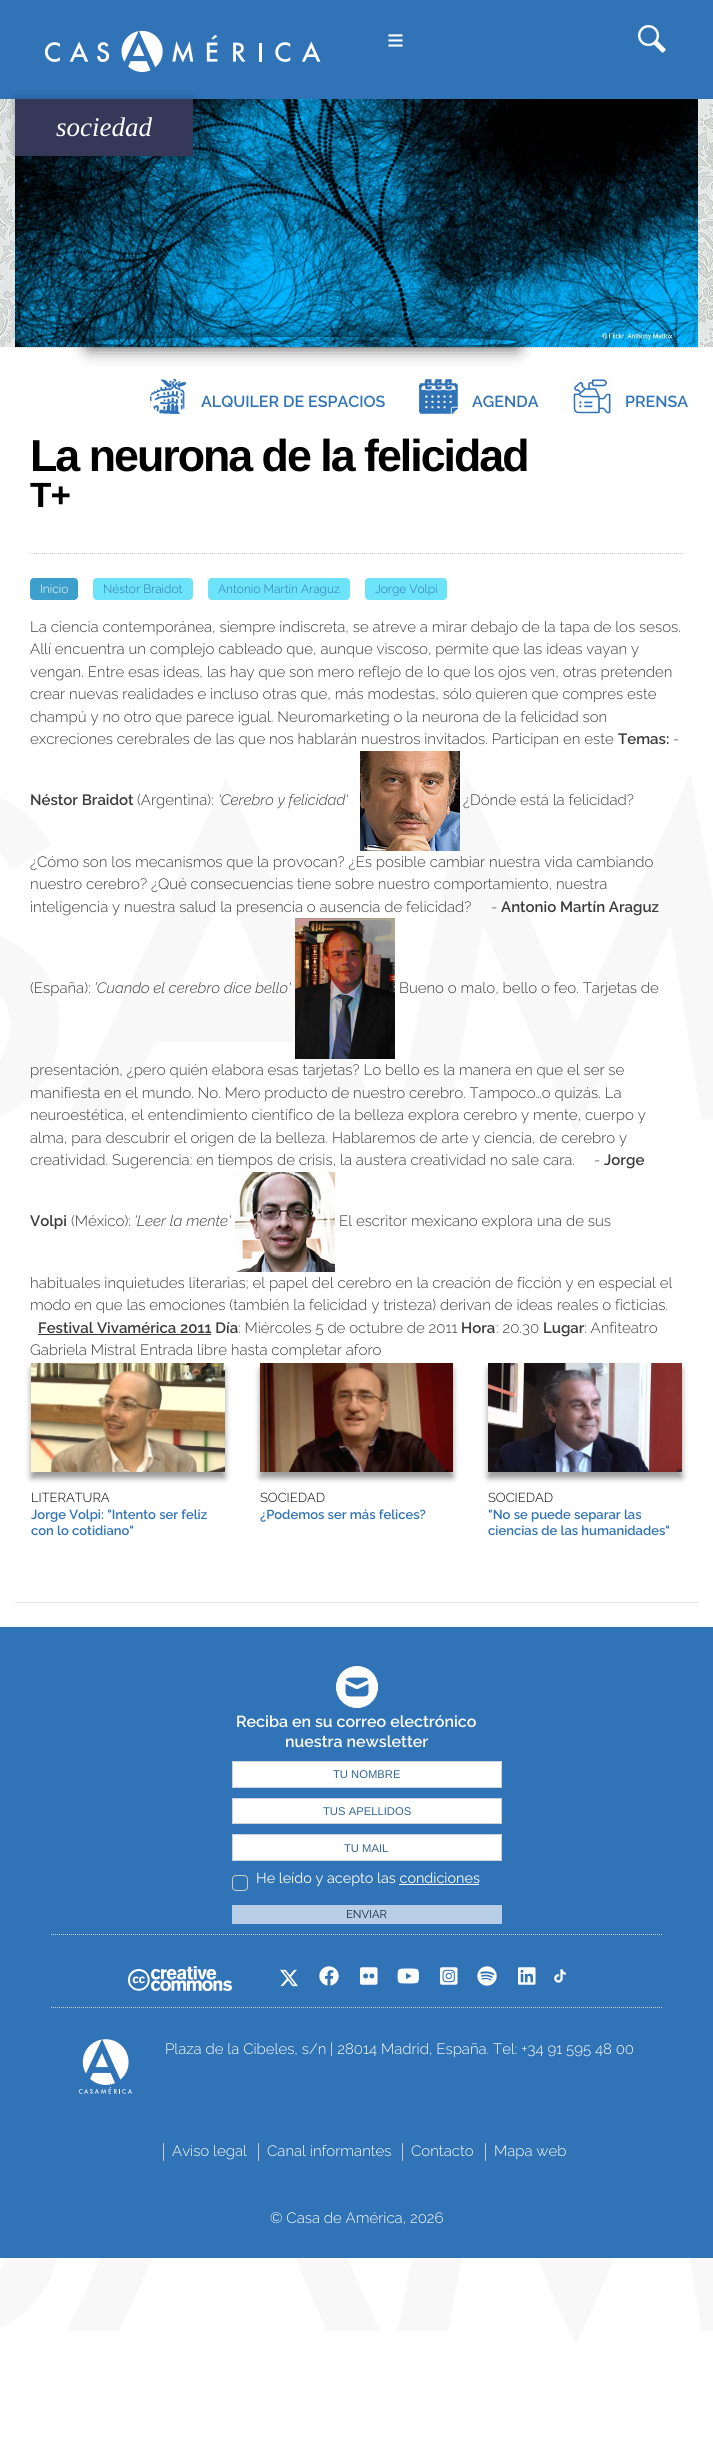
import math
import cairo


def use_color(cr, r, g, b):
  cr.set_source_rgb(r / 255, g / 255, b / 255)

def text(cr, x, y, s, family, size, color, bold=False, italic=False):
  cr.select_font_face(family, cairo.FONT_SLANT_ITALIC if italic else cairo.FONT_SLANT_NORMAL, cairo.FONT_WEIGHT_BOLD if bold else cairo.FONT_WEIGHT_NORMAL)
  cr.set_font_size(size)
  use_color(cr, *color)
  cr.move_to(x, y)
  cr.show_text(s)

def spaced_text(cr, x, y, s, letter, word):
  cr.move_to(x, y)
  for ch in s:
    cr.show_text(ch)
    cr.rel_move_to(letter + word * (ch == ' '), 0)

def box(cr, x, y, w, h, *color):
  use_color(cr, *color)
  cr.rectangle(x, y, w, h)
  cr.fill()

def round_rect(cr, x, y, w, h, r):
  cr.new_sub_path()
  for i, (u, v) in enumerate([(x + w - r, y + h - r), (x + r, y + h - r), (x + r, y + r), (x + w - r, y + r)]):
    cr.arc(u, v, r, i * math.pi / 2, (i + 1) * math.pi / 2)
  cr.close_path()

def shadow(cr, x, y, w, h, r, blur, alpha):
  cr.push_group_with_content(cairo.CONTENT_ALPHA)
  cr.set_operator(cairo.OPERATOR_SOURCE)
  for i in range(15, -16, -2):
    e = blur * i / 6
    if min(w, h) + 2 * e > 0:
      cr.set_source_rgba(0, 0, 0, alpha * math.erfc((i - 1) / 8.5) / 2)
      round_rect(cr, x - e, y - e, w + 2 * e, h + 2 * e, max(0, min(r + e + blur * .6, min(w, h) / 2 + e)))
      cr.fill()
  cr.mask(cr.pop_group())

def picture(cr, path, x, y, w, h):
  cr.save()
  cr.set_source_surface(cairo.ImageSurface.create_from_png(path), x, y)
  cr.rectangle(x, y, w, h)
  cr.fill()
  cr.restore()

def draw(cr):
  use_color(cr, 255, 255, 255)
  cr.paint()
  picture(cr, "img_01.png", 0, 347, 713, 2096)
  box(cr, 0, 0, 713, 99, 48, 115, 183)
  picture(cr, "img_02.png", 44, 30, 277, 42)
  picture(cr, "img_03.png", 638, 25, 28, 28)
  picture(cr, "img_04.png", 0, 99, 713, 248)
  picture(cr, "img_05.png", 15, 99, 683, 248)
  use_color(cr, 0, 0, 0)
  shadow(cr, 15, 99, 178, 57, 0, 5, 0.25)
  box(cr, 15, 99, 178, 57, 54, 56, 89)
  cr.new_path()
  cr.move_to(15, 347.5)
  cr.line_to(698, 347.5)
  use_color(cr, 204, 204, 204)
  cr.set_line_width(1)
  cr.set_dash([1, 1])
  cr.stroke()
  cr.save()
  cr.set_fill_rule(cairo.FILL_RULE_EVEN_ODD)
  cr.new_path()
  cr.move_to(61, 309)
  cr.line_to(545, 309)
  cr.line_to(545, 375)
  cr.line_to(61, 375)
  cr.close_path()
  cr.move_to(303, 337)
  cr.curve_to(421, 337, 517, 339, 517, 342)
  cr.curve_to(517, 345, 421, 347, 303, 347)
  cr.curve_to(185, 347, 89, 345, 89, 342)
  cr.curve_to(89, 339, 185, 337, 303, 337)
  cr.close_path()
  cr.clip()
  use_color(cr, 0, 0, 0)
  shadow(cr, 89, 337, 428, 10, 5, 9, 0.75)
  cr.restore()
  picture(cr, "img_06.png", 150, 379, 36, 35)
  picture(cr, "img_07.png", 419, 379, 39, 35)
  picture(cr, "img_08.png", 573, 379, 38, 35)
  cr.new_path()
  cr.move_to(30, 553.5)
  cr.line_to(683, 553.5)
  cr.stroke()
  use_color(cr, 61, 159, 204)
  round_rect(cr, 30, 578, 48, 22, 4)
  cr.fill()
  use_color(cr, 108, 227, 248)
  round_rect(cr, 93, 578, 100, 22, 4)
  cr.fill()
  round_rect(cr, 208, 578, 142, 22, 4)
  cr.fill()
  round_rect(cr, 365, 578, 82, 22, 4)
  cr.fill()
  picture(cr, "img_09.png", 360, 751, 100, 100)
  picture(cr, "img_10.png", 295, 918, 100, 141)
  picture(cr, "img_11.png", 235, 1172, 100, 100)
  box(cr, 38, 1334, 173, 1, 59, 59, 59)
  use_color(cr, 0, 0, 0)
  shadow(cr, 31, 1369, 194, 109, 0, 3, 0.4)
  picture(cr, "img_12.png", 31, 1363, 194, 109)
  shadow(cr, 260, 1369, 193, 109, 0, 3, 0.4)
  picture(cr, "img_13.png", 260, 1363, 193, 109)
  shadow(cr, 488, 1369, 194, 109, 0, 3, 0.4)
  picture(cr, "img_14.png", 488, 1363, 194, 109)
  box(cr, 15, 1602, 683, 1, 222, 226, 230)
  box(cr, 0, 1627, 713, 631, 48, 115, 183)
  picture(cr, "img_15.png", 336, 1666, 42, 42)
  use_color(cr, 255, 255, 255)
  cr.rectangle(232.5, 1761.5, 269, 26)
  cr.fill_preserve()
  use_color(cr, 206, 212, 218)
  cr.set_dash([])
  cr.stroke()
  use_color(cr, 255, 255, 255)
  cr.rectangle(232.5, 1798.5, 269, 25)
  cr.fill_preserve()
  use_color(cr, 206, 212, 218)
  cr.stroke()
  use_color(cr, 255, 255, 255)
  cr.rectangle(232.5, 1834.5, 269, 26)
  cr.fill_preserve()
  use_color(cr, 206, 212, 218)
  cr.stroke()
  round_rect(cr, 232.5, 1875.5, 15, 15, 3.5)
  use_color(cr, 204, 204, 204)
  cr.stroke()
  box(cr, 399, 1884, 80, 1, 255, 255, 255)
  box(cr, 232, 1905, 270, 19, 183, 206, 230)
  cr.new_path()
  cr.move_to(51, 1934.5)
  cr.line_to(662, 1934.5)
  use_color(cr, 204, 204, 204)
  cr.set_dash([1, 1])
  cr.stroke()
  picture(cr, "img_16.png", 128, 1966, 104, 25)
  picture(cr, "img_17.png", 280, 1969, 18, 18)
  picture(cr, "img_18.png", 319, 1966, 20, 20)
  picture(cr, "img_19.png", 360, 1967, 18, 18)
  picture(cr, "img_20.png", 397, 1968, 22, 16)
  picture(cr, "img_21.png", 440, 1967, 18, 18)
  picture(cr, "img_22.png", 477, 1966, 20, 20)
  picture(cr, "img_23.png", 518, 1967, 18, 18)
  picture(cr, "img_24.png", 554, 1969, 12, 14)
  cr.new_path()
  cr.move_to(51, 2007.5)
  cr.line_to(662, 2007.5)
  cr.stroke()
  picture(cr, "img_25.png", 78, 2039, 55, 55)
  box(cr, 163, 2143, 1, 18, 204, 204, 204)
  box(cr, 258, 2143, 1, 18, 204, 204, 204)
  box(cr, 402, 2143, 1, 18, 204, 204, 204)
  box(cr, 485, 2143, 1, 18, 204, 204, 204)
  cr.select_font_face("Liberation Sans", cairo.FONT_SLANT_NORMAL, cairo.FONT_WEIGHT_BOLD)
  cr.set_font_size(29)
  use_color(cr, 255, 255, 255)
  spaced_text(cr, 387, 50, "≡", 2, 0)
  text(cr, 56, 136, "sociedad", "Liberation Serif", 27, (255, 255, 255), italic=True)
  text(cr, 201, 407, "ALQUILER DE ESPACIOS", "Raleway SemiBold", 16, (48, 115, 183))
  text(cr, 472, 407, "AGENDA", "Raleway SemiBold", 16, (48, 115, 183))
  text(cr, 625, 407, "PRENSA", "Raleway SemiBold", 16, (48, 115, 183))
  cr.select_font_face("Liberation Sans", cairo.FONT_SLANT_NORMAL, cairo.FONT_WEIGHT_BOLD)
  cr.set_font_size(44.75)
  use_color(cr, 0, 0, 0)
  spaced_text(cr, 30, 471, "La neurona de la felicidad", -2, 0)
  cr.set_font_size(35)
  spaced_text(cr, 30, 507, "T+", -1, 0)
  text(cr, 40, 593, "Inicio", "Raleway Light", 12, (255, 255, 255))
  text(cr, 103, 593, "Néstor Braidot", "Raleway Light", 12, (48, 115, 183))
  text(cr, 218, 593, "Antonio Martín Araguz", "Raleway Light", 12, (48, 115, 183))
  text(cr, 375, 593, "Jorge Volpi", "Raleway Light", 12, (48, 115, 183))
  text(cr, 30, 632, "La ciencia contemporánea, siempre indiscreta, se atreve a mirar debajo de la tapa de los sesos.", "Raleway Light", 15, (59, 59, 59))
  text(cr, 30, 654, "Allí encuentra un complejo cableado que, aunque viscoso, permite que las ideas vayan y", "Raleway Light", 15, (59, 59, 59))
  text(cr, 30, 677, "vengan. Entre esas ideas, las hay que son mero reflejo de lo que los ojos ven, otras pretenden", "Raleway Light", 15, (59, 59, 59))
  text(cr, 30, 699, "crear nuevas realidades e incluso otras que, más modestas, sólo quieren que compres este", "Raleway Light", 15, (59, 59, 59))
  text(cr, 30, 722, "champú y no otro que parece igual. Neuromarketing o la neurona de la felicidad son", "Raleway Light", 15, (59, 59, 59))
  text(cr, 30, 744, "excreciones cerebrales de las que nos hablarán nuestros invitados. Participan en este", "Raleway Light", 15, (59, 59, 59))
  text(cr, 618, 744, "Temas:", "Raleway SemiBold", 15, (59, 59, 59))
  text(cr, 673, 744, "-", "Raleway Light", 15, (59, 59, 59))
  text(cr, 30, 805, "Néstor Braidot", "Raleway SemiBold", 15, (59, 59, 59))
  text(cr, 137, 805, "(Argentina):", "Raleway Light", 15, (59, 59, 59))
  text(cr, 218, 805, "'Cerebro y felicidad'", "Raleway Light", 15, (59, 59, 59), italic=True)
  text(cr, 463, 805, "¿Dónde está la felicidad?", "Raleway Light", 15, (59, 59, 59))
  text(cr, 30, 867, "¿Cómo son los mecanismos que la provocan? ¿Es posible cambiar nuestra vida cambiando", "Raleway Light", 15, (59, 59, 59))
  text(cr, 30, 889, "nuestro cerebro? ¿Qué consecuencias tiene sobre nuestro comportamiento, nuestra", "Raleway Light", 15, (59, 59, 59))
  text(cr, 30, 912, "inteligencia y nuestra salud la presencia o ausencia de felicidad?", "Raleway Light", 15, (59, 59, 59))
  text(cr, 491, 912, "-", "Raleway Light", 15, (59, 59, 59))
  text(cr, 501, 912, "Antonio Martín Araguz", "Raleway SemiBold", 15, (59, 59, 59))
  text(cr, 30, 993, "(España):", "Raleway Light", 15, (59, 59, 59))
  text(cr, 94, 993, "'Cuando el cerebro dice bello'", "Raleway Light", 15, (59, 59, 59), italic=True)
  text(cr, 399, 993, "Bueno o malo, bello o feo. Tarjetas de", "Raleway Light", 15, (59, 59, 59))
  text(cr, 30, 1075, "presentación, ¿pero quién elabora esas tarjetas? Lo bello es la manera en que el ser se", "Raleway Light", 15, (59, 59, 59))
  text(cr, 30, 1098, "manifiesta en el mundo. No. Mero producto de nuestro cerebro. Tampoco…o quizás. La", "Raleway Light", 15, (59, 59, 59))
  text(cr, 30, 1120, "neuroestética, el entendimiento científico de la belleza explora cerebro y mente, cuerpo y", "Raleway Light", 15, (59, 59, 59))
  text(cr, 30, 1143, "alma, para descubrir el origen de la belleza. Hablaremos de arte y ciencia, de cerebro y", "Raleway Light", 15, (59, 59, 59))
  text(cr, 30, 1165, "creatividad. Sugerencia: en tiempos de crisis, la austera creatividad no sale cara.", "Raleway Light", 15, (59, 59, 59))
  text(cr, 594, 1165, "-", "Raleway Light", 15, (59, 59, 59))
  text(cr, 604, 1165, "Jorge", "Raleway SemiBold", 15, (59, 59, 59))
  text(cr, 30, 1226, "Volpi", "Raleway SemiBold", 15, (59, 59, 59))
  text(cr, 71, 1226, "(México):", "Raleway Light", 15, (59, 59, 59))
  text(cr, 134, 1226, "'Leer la mente'", "Raleway Light", 15, (59, 59, 59), italic=True)
  text(cr, 339, 1226, "El escritor mexicano explora una de sus", "Raleway Light", 15, (59, 59, 59))
  text(cr, 30, 1288, "habituales inquietudes literarias; el papel del cerebro en la creación de ficción y en especial el", "Raleway Light", 15, (59, 59, 59))
  text(cr, 30, 1310, "modo en que las emociones (también la felicidad y tristeza) derivan de ideas reales o ficticias.", "Raleway Light", 15, (59, 59, 59))
  text(cr, 38, 1333, "Festival Vivamérica 2011 Día", "Raleway SemiBold", 15, (59, 59, 59))
  text(cr, 238, 1333, ": Miércoles 5 de octubre de 2011", "Raleway Light", 15, (59, 59, 59))
  text(cr, 461, 1333, "Hora", "Raleway SemiBold", 15, (59, 59, 59))
  text(cr, 496, 1333, ": 20.30", "Raleway Light", 15, (59, 59, 59))
  text(cr, 543, 1333, "Lugar", "Raleway SemiBold", 15, (59, 59, 59))
  text(cr, 584, 1333, ": Anfiteatro", "Raleway Light", 15, (59, 59, 59))
  text(cr, 30, 1355, "Gabriela Mistral Entrada libre hasta completar aforo", "Raleway Light", 15, (59, 59, 59))
  text(cr, 31, 1502, "LITERATURA", "Raleway Light", 13, (0, 0, 0))
  text(cr, 31, 1519, "Jorge Volpi: \"Intento ser feliz", "Raleway SemiBold", 13, (48, 115, 183))
  text(cr, 31, 1535, "con lo cotidiano\"", "Raleway SemiBold", 13, (48, 115, 183))
  text(cr, 260, 1502, "SOCIEDAD", "Raleway Light", 13, (0, 0, 0))
  text(cr, 260, 1519, "¿Podemos ser más felices?", "Raleway SemiBold", 13, (48, 115, 183))
  text(cr, 488, 1502, "SOCIEDAD", "Raleway Light", 13, (0, 0, 0))
  text(cr, 488, 1519, "\"No se puede separar las", "Raleway SemiBold", 13, (48, 115, 183))
  text(cr, 488, 1535, "ciencias de las humanidades\"", "Raleway SemiBold", 13, (48, 115, 183))
  text(cr, 236, 1727, "Reciba en su correo electrónico", "Raleway SemiBold", 16, (255, 255, 255))
  text(cr, 285, 1747, "nuestra newsletter", "Raleway SemiBold", 16, (255, 255, 255))
  text(cr, 333, 1778, "TU NOMBRE", "Liberation Sans", 11.25, (51, 102, 153))
  text(cr, 323, 1815, "TUS APELLIDOS", "Liberation Sans", 11.25, (51, 102, 153))
  text(cr, 344, 1852, "TU MAIL", "Liberation Sans", 11.25, (51, 102, 153))
  text(cr, 256, 1883, "He leído y acepto las condiciones", "Raleway", 14.4, (255, 255, 255))
  text(cr, 346, 1918, "ENVIAR", "Raleway", 11.25, (17, 40, 64))
  text(cr, 165, 2054, "Plaza de la Cibeles, s/n | 28014 Madrid, España. Tel: +34 91 595 48 00", "Raleway Light", 15, (255, 255, 255))
  text(cr, 172, 2156, "Aviso legal", "Raleway Light", 15, (255, 255, 255))
  text(cr, 267, 2156, "Canal informantes", "Raleway Light", 15, (255, 255, 255))
  text(cr, 411, 2156, "Contacto", "Raleway Light", 15, (255, 255, 255))
  text(cr, 494, 2156, "Mapa web", "Raleway Light", 15, (255, 255, 255))
  text(cr, 270, 2223, "© Casa de América, 2026", "Raleway Light", 15, (255, 255, 255))


surface = cairo.ImageSurface(cairo.FORMAT_RGB24, 713, 2443)
cr = cairo.Context(surface)
options = cairo.FontOptions()
options.set_hint_metrics(cairo.HINT_METRICS_OFF)
options.set_hint_style(cairo.HINT_STYLE_NONE)
cr.set_font_options(options)
cr.set_miter_limit(4)
draw(cr)
surface.write_to_png("out.png")
